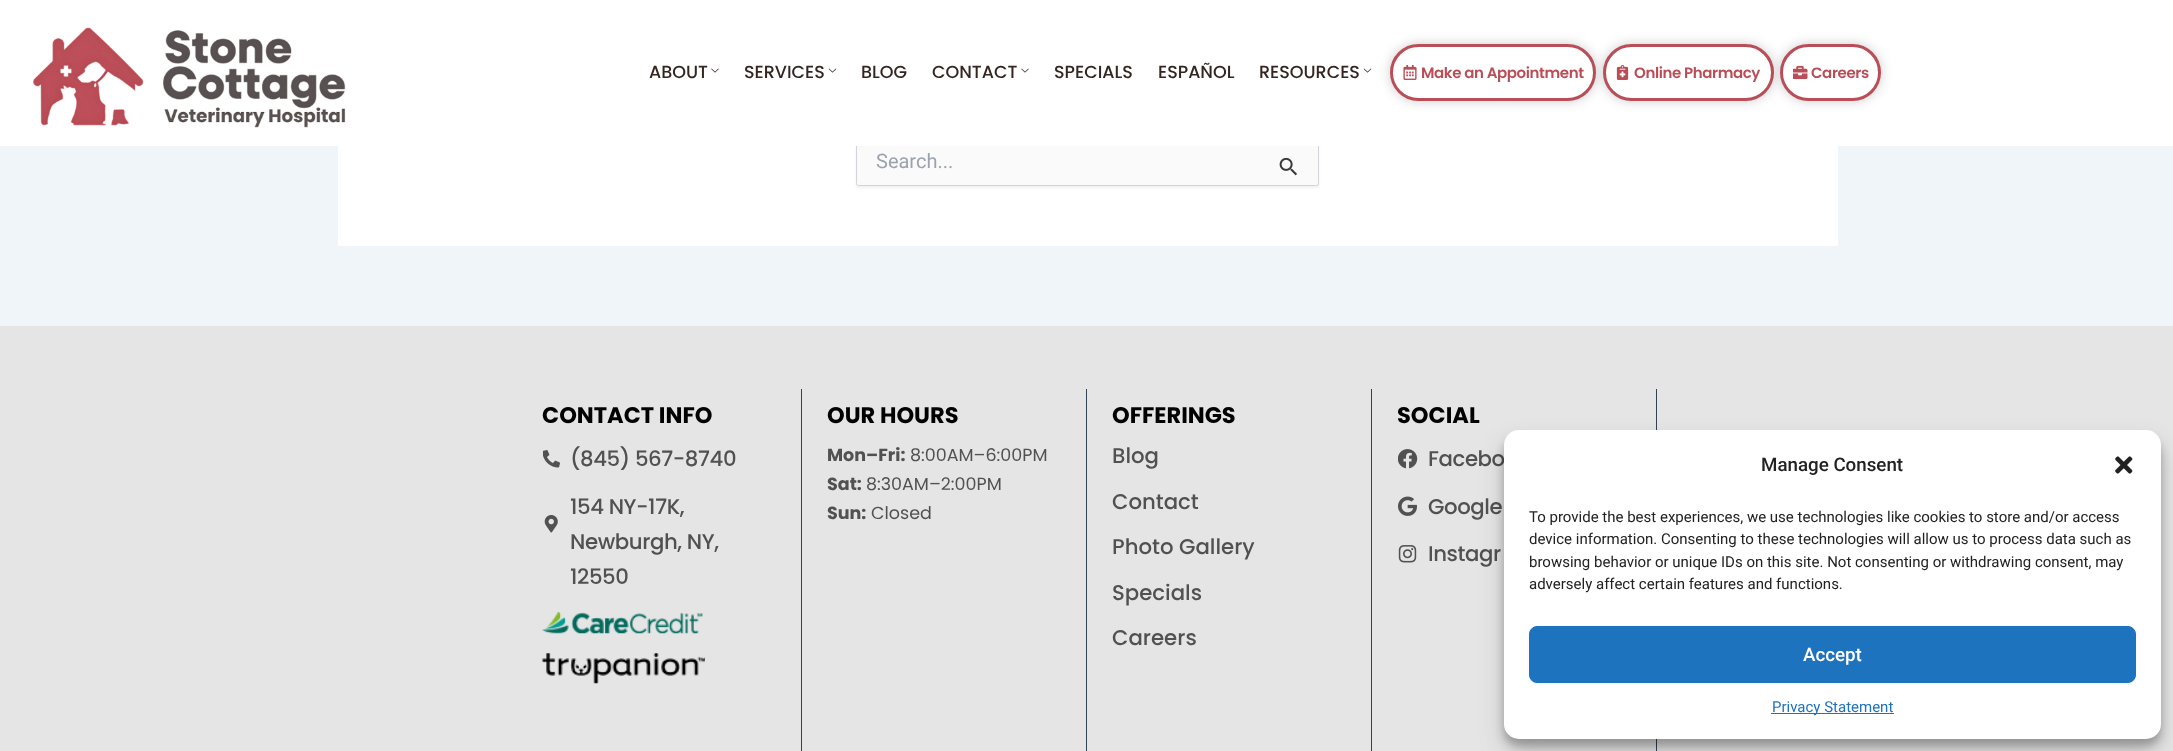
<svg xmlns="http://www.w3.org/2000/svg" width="2173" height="751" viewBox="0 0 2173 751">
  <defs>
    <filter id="blur1" x="-50%" y="-200%" width="200%" height="500%"><feGaussianBlur stdDeviation="1"/></filter>
    <filter id="blur2" x="-50%" y="-200%" width="200%" height="500%"><feGaussianBlur stdDeviation="6"/></filter>
    <filter id="blur3" x="-50%" y="-200%" width="200%" height="500%"><feGaussianBlur stdDeviation="4"/></filter>
    <filter id="blur4" x="-50%" y="-200%" width="200%" height="500%"><feGaussianBlur stdDeviation="12.5"/></filter>
  </defs>
  <rect width="100%" height="100%" fill="#f0f5fa"/>
  <rect x="338" y="146" width="1500" height="100" fill="#ffffff"/>
  <rect x="856" y="138" width="463" height="50" rx="2.5" fill="#000000" fill-opacity="0.05" filter="url(#blur1)"/>
  <rect x="856.5" y="136.5" width="462" height="49" rx="2" fill="#fafafa" stroke="#d1d5db"/>
  <rect x="0" y="0" width="2173" height="146" fill="#ffffff"/>
  <image x="33" y="27" width="313" height="101" href="img1.png"/>
  <text x="649" y="78" font-family="Poppins" font-size="17.5" font-weight="500" fill="#342520">ABOUT</text>
  <image x="711" y="68" width="8" height="5" href="img2.png"/>
  <text x="744" y="78" font-family="Poppins" font-size="17.5" font-weight="500" fill="#342520">SERVICES</text>
  <image x="828" y="68" width="9" height="5" href="img3.png"/>
  <text x="861" y="78" font-family="Poppins" font-size="17.5" font-weight="500" fill="#342520">BLOG</text>
  <text x="932" y="78" font-family="Poppins" font-size="17.5" font-weight="500" fill="#342520">CONTACT</text>
  <image x="1021" y="68" width="8" height="5" href="img2.png"/>
  <text x="1054" y="78" font-family="Poppins" font-size="17.5" font-weight="500" fill="#342520">SPECIALS</text>
  <text x="1158" y="78" font-family="Poppins" font-size="17.5" font-weight="500" fill="#342520">ESPAÑOL</text>
  <text x="1259" y="78" font-family="Poppins" font-size="17.5" font-weight="500" fill="#342520">RESOURCES</text>
  <rect x="1390" y="44" width="206" height="57" rx="28.5" fill="#000000" fill-opacity="0.2" filter="url(#blur2)"/>
  <image x="1363" y="68" width="9" height="5" href="img3.png"/>
  <rect x="1391.5" y="45.5" width="203" height="54" rx="27" fill="#ffffff" stroke="#b94e58" stroke-width="3"/>
  <image x="1403" y="65" width="14" height="15" href="img4.png"/>
  <text x="1421" y="78" font-family="Poppins" font-size="15" font-weight="600" letter-spacing="-0.4" fill="#b94e58">Make an Appointment</text>
  <rect x="1603" y="44" width="171" height="57" rx="28.5" fill="#000000" fill-opacity="0.2" filter="url(#blur2)"/>
  <rect x="1604.5" y="45.5" width="168" height="54" rx="27" fill="#ffffff" stroke="#b94e58" stroke-width="3"/>
  <image x="1616" y="65" width="13" height="15" href="img5.png"/>
  <text x="1634" y="78" font-family="Poppins" font-size="15" font-weight="600" letter-spacing="-0.4" fill="#b94e58">Online Pharmacy</text>
  <rect x="1780" y="44" width="101" height="57" rx="28.5" fill="#000000" fill-opacity="0.2" filter="url(#blur2)"/>
  <rect x="1781.5" y="45.5" width="98" height="54" rx="27" fill="#ffffff" stroke="#b94e58" stroke-width="3"/>
  <image x="1793" y="65" width="15" height="15" href="img6.png"/>
  <text x="1811" y="78" font-family="Poppins" font-size="15" font-weight="600" letter-spacing="-0.4" fill="#b94e58">Careers</text>
  <text x="876" y="168" font-family="Roboto" font-size="20" fill="#9ca3af">Search...</text>
  <image x="1279" y="157" width="18" height="19" href="img7.png"/>
  <rect x="0" y="326" width="2173" height="425" fill="#e5e5e5"/>
  <rect x="801" y="389" width="1" height="362" fill="#334155"/>
  <text x="542" y="423" font-family="Poppins" font-size="22.5" font-weight="bold" fill="#000000">CONTACT INFO</text>
  <image x="543" y="450" width="17" height="18" href="img8.png"/>
  <text x="570" y="466" font-family="Poppins" font-size="21.25" font-weight="500" letter-spacing="-0.4" fill="#515151">(845) 567-8740</text>
  <image x="544" y="515" width="14" height="18" href="img9.png"/>
  <text x="570" y="514" font-family="Poppins" font-size="21.25" font-weight="500" letter-spacing="-0.4" fill="#515151">154 NY-17K,</text>
  <text x="570" y="549" font-family="Poppins" font-size="21.25" font-weight="500" letter-spacing="-0.4" fill="#515151">Newburgh, NY,</text>
  <text x="570" y="584" font-family="Poppins" font-size="21.25" font-weight="500" letter-spacing="-0.4" fill="#515151">12550</text>
  <image x="542" y="612" width="161" height="22" href="img10.png"/>
  <image x="542" y="653" width="163" height="31" href="img11.png"/>
  <rect x="1086" y="389" width="1" height="362" fill="#334155"/>
  <text x="827" y="423" font-family="Poppins" font-size="22.5" font-weight="bold" fill="#000000">OUR HOURS</text>
  <text x="827" y="461" font-family="Poppins" font-size="17.5" font-weight="bold" fill="#515151">Mon–Fri:</text>
  <text x="910" y="461" font-family="Poppins" font-size="17.5" fill="#515151">8:00AM–6:00PM</text>
  <text x="827" y="490" font-family="Poppins" font-size="17.5" font-weight="bold" fill="#515151">Sat:</text>
  <text x="866" y="490" font-family="Poppins" font-size="17.5" fill="#515151">8:30AM–2:00PM</text>
  <text x="827" y="519" font-family="Poppins" font-size="17.5" font-weight="bold" fill="#515151">Sun:</text>
  <text x="871" y="519" font-family="Poppins" font-size="17.5" fill="#515151">Closed</text>
  <rect x="1371" y="389" width="1" height="362" fill="#334155"/>
  <text x="1112" y="423" font-family="Poppins" font-size="22.5" font-weight="bold" fill="#000000">OFFERINGS</text>
  <text x="1112" y="463" font-family="Poppins" font-size="21.25" font-weight="500" fill="#515151">Blog</text>
  <text x="1112" y="509" font-family="Poppins" font-size="21.25" font-weight="500" fill="#515151">Contact</text>
  <text x="1112" y="554" font-family="Poppins" font-size="21.25" font-weight="500" fill="#515151">Photo Gallery</text>
  <text x="1112" y="600" font-family="Poppins" font-size="21.25" font-weight="500" fill="#515151">Specials</text>
  <text x="1112" y="645" font-family="Poppins" font-size="21.25" font-weight="500" fill="#515151">Careers</text>
  <rect x="1656" y="389" width="1" height="362" fill="#334155"/>
  <text x="1397" y="423" font-family="Poppins" font-size="22.5" font-weight="bold" fill="#000000">SOCIAL</text>
  <image x="1398" y="449" width="20" height="20" href="img12.png"/>
  <text x="1428" y="466" font-family="Poppins" font-size="21.25" font-weight="500" letter-spacing="-0.4" fill="#515151">Facebo</text>
  <image x="1398" y="496" width="19" height="20" href="img13.png"/>
  <text x="1428" y="514" font-family="Poppins" font-size="21.25" font-weight="500" letter-spacing="-0.4" fill="#515151">Google</text>
  <image x="1398" y="545" width="19" height="18" href="img14.png"/>
  <text x="1428" y="561" font-family="Poppins" font-size="21.25" font-weight="500" letter-spacing="-0.4" fill="#515151">Instagr</text>
  <rect x="1504" y="438" width="657" height="308" rx="15" fill="#000000" fill-opacity="0.23" filter="url(#blur3)"/>
  <rect x="1504" y="443" width="657" height="308" rx="15" fill="#000000" fill-opacity="0.19" filter="url(#blur4)"/>
  <rect x="1504" y="430" width="657" height="309" rx="15" fill="#ffffff"/>
  <text x="1761" y="471" font-family="Roboto" font-size="18.75" font-weight="500" fill="#222222">Manage Consent</text>
  <image x="2115" y="456" width="18" height="18" href="img15.png"/>
  <text x="1529" y="522" font-family="Roboto" font-size="15" fill="#222222">To provide the best experiences, we use technologies like cookies to store and/or access</text>
  <text x="1529" y="544" font-family="Roboto" font-size="15" fill="#222222">device information. Consenting to these technologies will allow us to process data such as</text>
  <text x="1529" y="567" font-family="Roboto" font-size="15" fill="#222222">browsing behavior or unique IDs on this site. Not consenting or withdrawing consent, may</text>
  <text x="1529" y="589" font-family="Roboto" font-size="15" fill="#222222">adversely affect certain features and functions.</text>
  <rect x="1529" y="628" width="607" height="56" rx="8" fill="#000000" fill-opacity="0.05" filter="url(#blur1)"/>
  <rect x="1529.5" y="626.5" width="606" height="56" rx="7.5" fill="#1e73be" stroke="#1e73be"/>
  <text x="1803" y="661" font-family="Roboto" font-size="18.75" font-weight="500" fill="#ffffff">Accept</text>
  <rect x="1771" y="713" width="123" height="1" fill="#1e73be"/>
  <text x="1772" y="712" font-family="Roboto" font-size="15" fill="#1e73be">Privacy Statement</text>
</svg>
